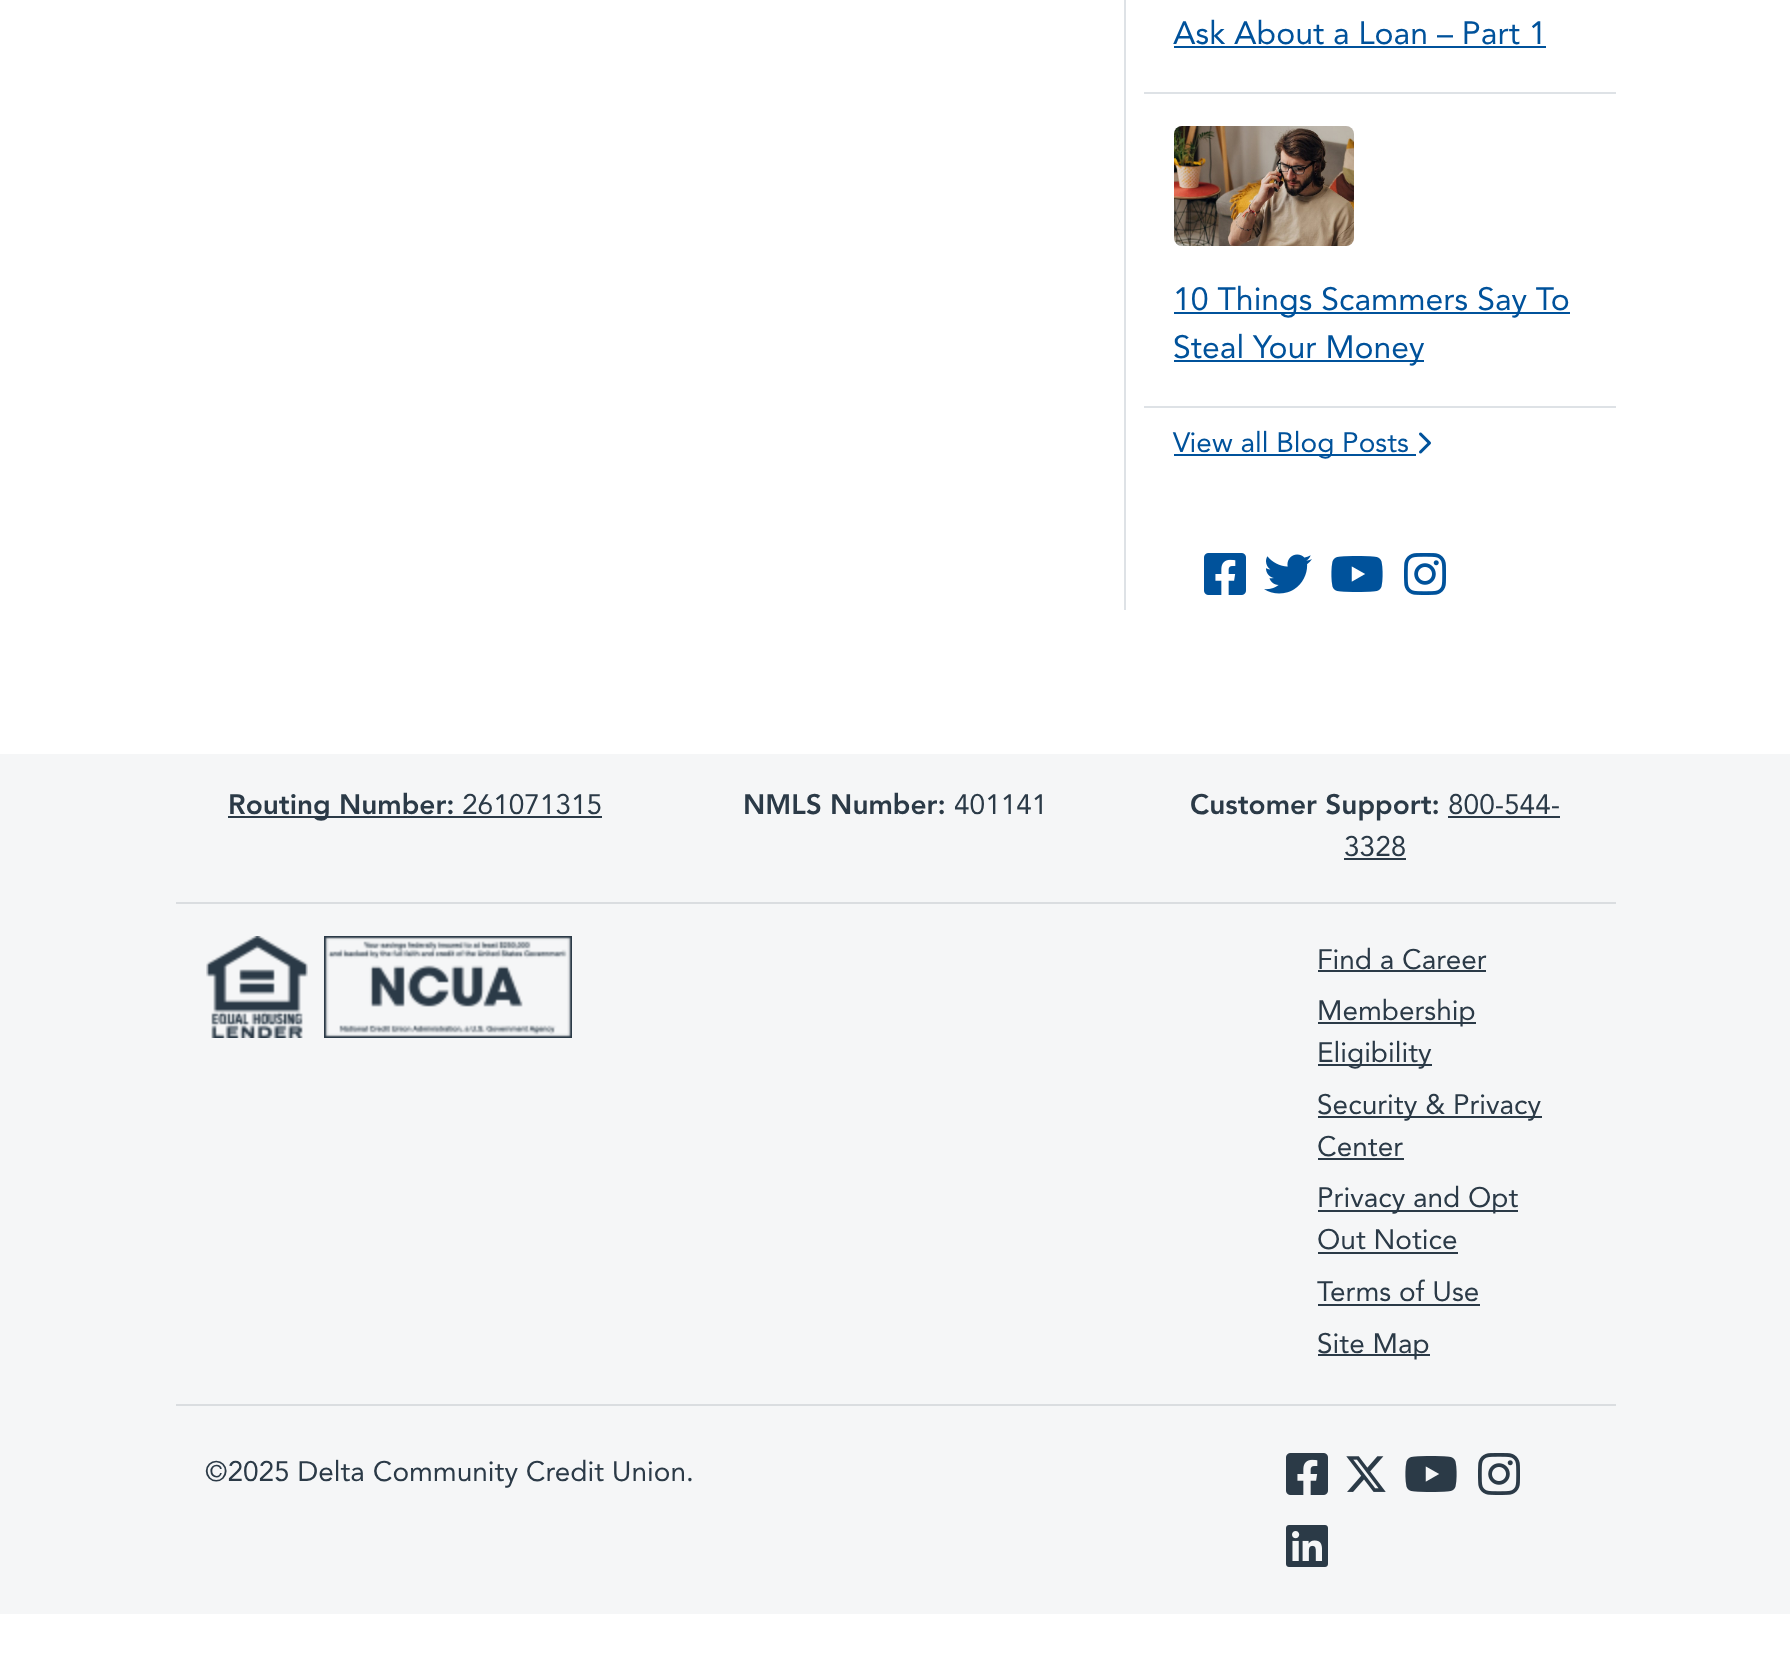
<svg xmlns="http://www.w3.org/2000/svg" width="1790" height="1662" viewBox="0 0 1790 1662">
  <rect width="100%" height="100%" fill="#ffffff"/>
  <rect x="1124" y="0" width="2" height="610" fill="#dee2e6"/>
  <rect x="1144" y="92" width="472" height="2" fill="#dee2e6"/>
  <text x="1173" y="44" font-family="Avenir" font-size="32" fill="#00529b">Ask About a Loan – Part 1</text>
  <rect x="1174" y="46" width="372" height="2" fill="#00529b"/>
  <rect x="1144" y="406" width="472" height="2" fill="#dee2e6"/>
  <image x="1174" y="126" width="180" height="120" href="img1.png"/>
  <rect x="1174" y="312" width="396" height="2" fill="#00529b"/>
  <text x="1173" y="310" font-family="Avenir" font-size="32" fill="#00529b">10 Things Scammers Say To</text>
  <rect x="1174" y="360" width="250" height="2" fill="#00529b"/>
  <text x="1173" y="358" font-family="Avenir" font-size="32" fill="#00529b">Steal Your Money</text>
  <rect x="1174" y="454" width="242" height="2" fill="#00529b"/>
  <text x="1173" y="452" font-family="Avenir" font-size="28" fill="#00529b">View all Blog Posts</text>
  <image x="1419" y="432" width="12" height="22" href="img2.png"/>
  <image x="1204" y="553" width="42" height="42" href="img3.png"/>
  <image x="1264" y="554" width="48" height="40" href="img4.png"/>
  <image x="1331" y="556" width="52" height="36" href="img5.png"/>
  <image x="1404" y="553" width="42" height="42" href="img6.png"/>
  <rect x="0" y="754" width="1790" height="860" fill="#f5f6f7"/>
  <rect x="176" y="902" width="1440" height="2" fill="#dadde0"/>
  <rect x="228" y="816" width="374" height="2" fill="#2b3a47"/>
  <text x="228" y="814" font-family="'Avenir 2'" font-size="28" fill="#2b3a47">Routing Number:</text>
  <text x="462" y="814" font-family="Avenir" font-size="28" fill="#2b3a47">261071315</text>
  <text x="743" y="814" font-family="'Avenir 2'" font-size="28" fill="#2b3a47">NMLS Number:</text>
  <text x="954" y="814" font-family="Avenir" font-size="28" fill="#2b3a47">401141</text>
  <text x="1190" y="814" font-family="'Avenir 2'" font-size="28" fill="#2b3a47">Customer Support:</text>
  <text x="1448" y="814" font-family="Avenir" font-size="28" fill="#2b3a47">800-544-</text>
  <rect x="1448" y="816" width="112" height="2" fill="#2b3a47"/>
  <text x="1344" y="856" font-family="Avenir" font-size="28" fill="#2b3a47">3328</text>
  <rect x="1344" y="858" width="62" height="2" fill="#2b3a47"/>
  <rect x="176" y="1404" width="1440" height="2" fill="#dadde0"/>
  <image x="206" y="936" width="102" height="102" href="img7.png"/>
  <image x="324" y="936" width="248" height="102" href="img8.png"/>
  <text x="1317" y="969" font-family="Avenir" font-size="28" fill="#2b3a47">Find a Career</text>
  <rect x="1318" y="970" width="168" height="2" fill="#2b3a47"/>
  <rect x="1318" y="1022" width="158" height="2" fill="#2b3a47"/>
  <text x="1317" y="1020" font-family="Avenir" font-size="28" fill="#2b3a47">Membership</text>
  <rect x="1318" y="1064" width="114" height="2" fill="#2b3a47"/>
  <text x="1317" y="1062" font-family="Avenir" font-size="28" fill="#2b3a47">Eligibility</text>
  <rect x="1318" y="1116" width="224" height="2" fill="#2b3a47"/>
  <text x="1317" y="1114" font-family="Avenir" font-size="28" fill="#2b3a47">Security &amp; Privacy</text>
  <text x="1317" y="1156" font-family="Avenir" font-size="28" fill="#2b3a47">Center</text>
  <rect x="1318" y="1158" width="86" height="2" fill="#2b3a47"/>
  <rect x="1318" y="1210" width="200" height="2" fill="#2b3a47"/>
  <text x="1317" y="1207" font-family="Avenir" font-size="28" fill="#2b3a47">Privacy and Opt</text>
  <text x="1317" y="1249" font-family="Avenir" font-size="28" fill="#2b3a47">Out Notice</text>
  <rect x="1318" y="1252" width="140" height="2" fill="#2b3a47"/>
  <text x="1317" y="1301" font-family="Avenir" font-size="28" fill="#2b3a47">Terms of Use</text>
  <rect x="1318" y="1304" width="162" height="2" fill="#2b3a47"/>
  <rect x="1318" y="1354" width="112" height="2" fill="#2b3a47"/>
  <text x="1317" y="1353" font-family="Avenir" font-size="28" fill="#2b3a47">Site Map</text>
  <text x="205" y="1481" font-family="Avenir" font-size="28" fill="#2b3a47">©2025 Delta Community Credit Union.</text>
  <image x="1286" y="1453" width="42" height="42" href="img9.png"/>
  <image x="1346" y="1456" width="40" height="36" href="img10.png"/>
  <image x="1405" y="1456" width="52" height="36" href="img11.png"/>
  <image x="1478" y="1453" width="42" height="42" href="img12.png"/>
  <image x="1286" y="1525" width="42" height="42" href="img13.png"/>
</svg>
